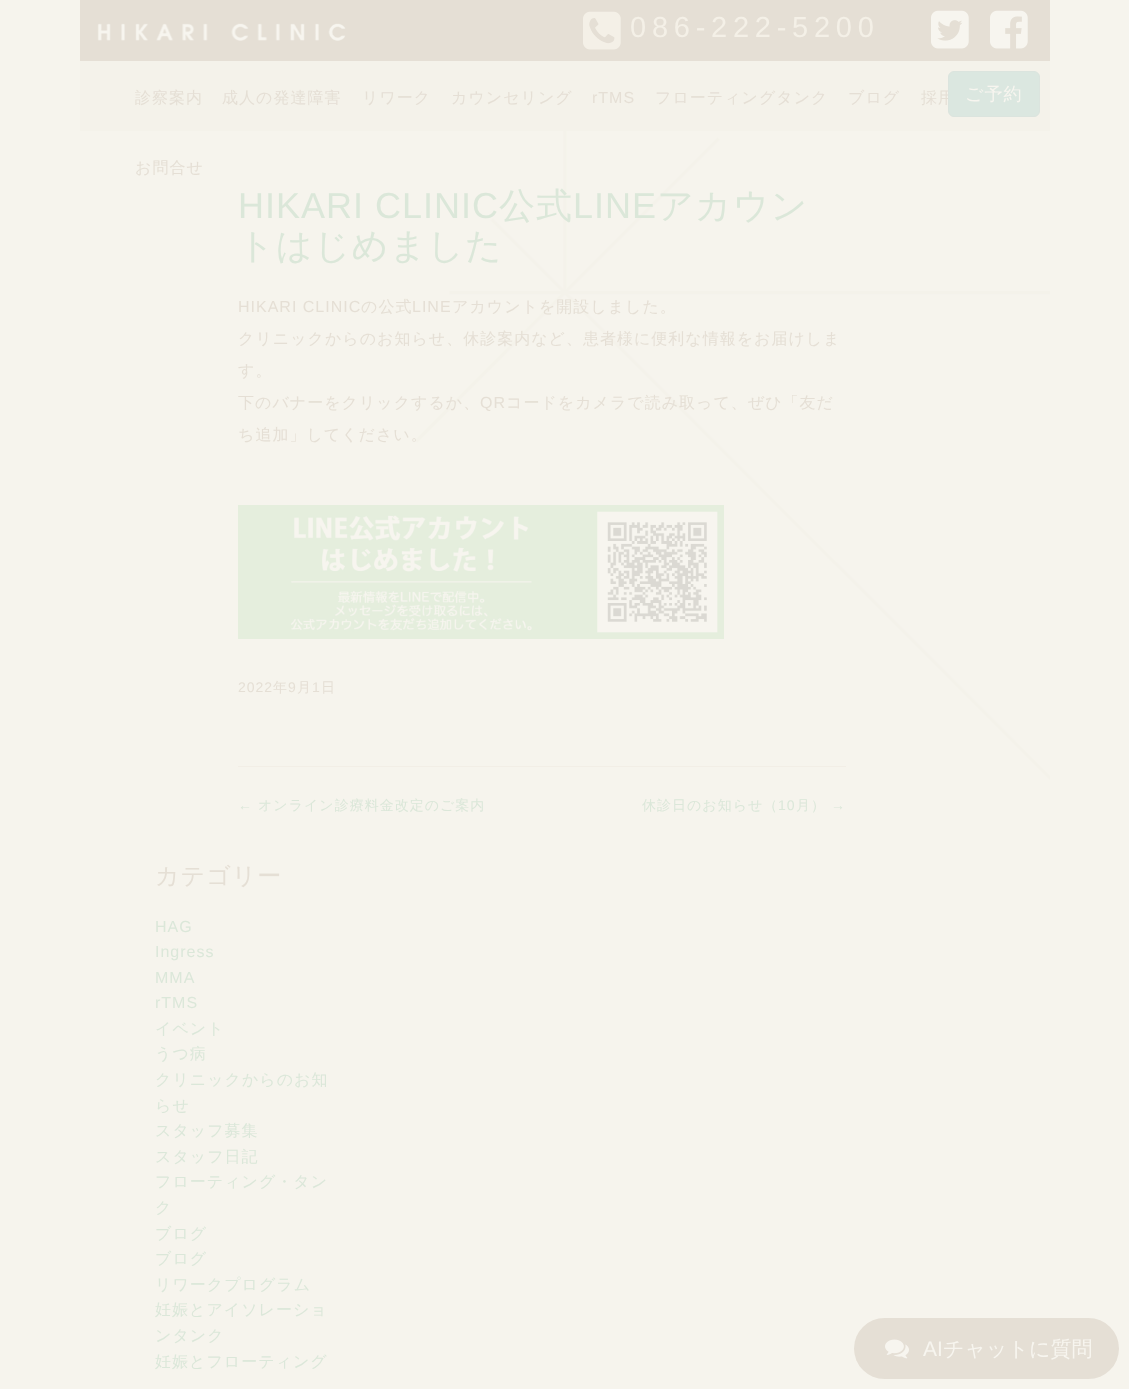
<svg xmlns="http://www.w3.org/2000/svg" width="1129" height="1389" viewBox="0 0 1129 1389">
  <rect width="100%" height="100%" fill="#f6f4ed"/>
  <rect x="80" y="0" width="970" height="61" fill="#e5dfd5"/>
  <image x="97" y="23" width="249" height="18" href="img1.png"/>
  <image x="583" y="11" width="38" height="39" href="img2.png"/>
  <text x="630" y="37" font-family="Liberation Sans" font-size="29" letter-spacing="5.75" fill="#f4f0e7">086-222-5200</text>
  <image x="931" y="10" width="38" height="39" href="img3.png"/>
  <image x="990" y="10" width="38" height="39" href="img4.png"/>
  <rect x="80" y="61" width="970" height="70" fill="#f4f2ea"/>
  <text x="135" y="103" font-family="WenQuanYi Zen Hei" font-size="16" font-weight="500" letter-spacing="1" fill="#e5dfd5">診察案内</text>
  <text x="222" y="103" font-family="WenQuanYi Zen Hei" font-size="16" font-weight="500" letter-spacing="1" fill="#e5dfd5">成人の発達障害</text>
  <text x="362" y="103" font-family="WenQuanYi Zen Hei" font-size="16" font-weight="500" letter-spacing="1" fill="#e5dfd5">リワーク</text>
  <text x="451" y="103" font-family="WenQuanYi Zen Hei" font-size="16" font-weight="500" letter-spacing="1" fill="#e5dfd5">カウンセリング</text>
  <text x="592" y="103" font-family="Liberation Sans" font-size="16" letter-spacing="1" fill="#e5dfd5">rTMS</text>
  <text x="655" y="103" font-family="WenQuanYi Zen Hei" font-size="16" font-weight="500" letter-spacing="1" fill="#e5dfd5">フローティングタンク</text>
  <text x="848" y="103" font-family="WenQuanYi Zen Hei" font-size="16" font-weight="500" letter-spacing="1" fill="#e5dfd5">ブログ</text>
  <text x="921" y="103" font-family="WenQuanYi Zen Hei" font-size="16" font-weight="500" letter-spacing="1" fill="#e5dfd5">採用</text>
  <text x="135" y="173" font-family="WenQuanYi Zen Hei" font-size="16" font-weight="500" letter-spacing="1" fill="#e5dfd5">お問合せ</text>
  <rect x="948.5" y="71.5" width="91" height="45" rx="5.5" fill="#dbe7e0" stroke="#dbe4de"/>
  <text x="965" y="100" font-family="WenQuanYi Zen Hei" font-size="18" font-weight="500" letter-spacing="1" fill="#f7f5ef">ご予約</text>
  <image x="415" y="131" width="635" height="649" href="img5.png"/>
  <text x="238" y="218" font-family="Liberation Sans" font-size="36" letter-spacing="1" fill="#dbe7d9">HIKARI CLINIC</text>
  <text x="499" y="218" font-family="WenQuanYi Zen Hei" font-size="36" font-weight="500" letter-spacing="1" fill="#dbe7d9">公式</text>
  <text x="573" y="218" font-family="Liberation Sans" font-size="36" letter-spacing="1" fill="#dbe7d9">LINE</text>
  <text x="657" y="218" font-family="WenQuanYi Zen Hei" font-size="36" font-weight="500" letter-spacing="1" fill="#dbe7d9">アカウン</text>
  <text x="238" y="258" font-family="WenQuanYi Zen Hei" font-size="36" font-weight="500" letter-spacing="1" fill="#dbe7d9">トはじめました</text>
  <text x="238" y="312" font-family="Liberation Sans" font-size="16" letter-spacing="1" fill="#e5dfd5">HIKARI CLINIC</text>
  <text x="361" y="312" font-family="WenQuanYi Zen Hei" font-size="16" font-weight="500" letter-spacing="1" fill="#e5dfd5">の公式</text>
  <text x="412" y="312" font-family="Liberation Sans" font-size="16" letter-spacing="1" fill="#e5dfd5">LINE</text>
  <text x="452" y="312" font-family="WenQuanYi Zen Hei" font-size="16" font-weight="500" letter-spacing="1" fill="#e5dfd5">アカウントを開設しました。</text>
  <text x="238" y="344" font-family="WenQuanYi Zen Hei" font-size="16" font-weight="500" letter-spacing="1" fill="#e5dfd5">クリニックからのお知らせ、休診案内など、患者様に便利な情報をお届けしま</text>
  <text x="238" y="376" font-family="WenQuanYi Zen Hei" font-size="16" font-weight="500" letter-spacing="1" fill="#e5dfd5">す。</text>
  <text x="238" y="408" font-family="WenQuanYi Zen Hei" font-size="16" font-weight="500" letter-spacing="1" fill="#e5dfd5">下のバナーをクリックするか、</text>
  <text x="480" y="408" font-family="Liberation Sans" font-size="16" letter-spacing="1" fill="#e5dfd5">QR</text>
  <text x="506" y="408" font-family="WenQuanYi Zen Hei" font-size="16" font-weight="500" letter-spacing="1" fill="#e5dfd5">コードをカメラで読み取って、ぜひ「友だ</text>
  <text x="238" y="440" font-family="WenQuanYi Zen Hei" font-size="16" font-weight="500" letter-spacing="1" fill="#e5dfd5">ち追加」してください。</text>
  <image x="238" y="505" width="486" height="134" href="img6.png"/>
  <text x="238" y="692" font-family="Liberation Sans" font-size="14" letter-spacing="1" fill="#e5dfd5">2022</text>
  <text x="273" y="692" font-family="WenQuanYi Zen Hei" font-size="14" font-weight="500" letter-spacing="1" fill="#e5dfd5">年</text>
  <text x="288" y="692" font-family="Liberation Sans" font-size="14" letter-spacing="1" fill="#e5dfd5">9</text>
  <text x="297" y="692" font-family="WenQuanYi Zen Hei" font-size="14" font-weight="500" letter-spacing="1" fill="#e5dfd5">月</text>
  <text x="312" y="692" font-family="Liberation Sans" font-size="14" letter-spacing="1" fill="#e5dfd5">1</text>
  <text x="321" y="692" font-family="WenQuanYi Zen Hei" font-size="14" font-weight="500" letter-spacing="1" fill="#e5dfd5">日</text>
  <rect x="238" y="766" width="608" height="1" fill="#f2eee6"/>
  <text x="238" y="810" font-family="Liberation Sans" font-size="14" letter-spacing="1" fill="#dbe7d9">←</text>
  <text x="258" y="810" font-family="WenQuanYi Zen Hei" font-size="14" font-weight="500" letter-spacing="1" fill="#dbe7d9">オンライン診療料金改定のご案内</text>
  <text x="642" y="810" font-family="WenQuanYi Zen Hei" font-size="14" font-weight="500" letter-spacing="1" fill="#dbe7d9">休診日のお知らせ（</text>
  <text x="778" y="810" font-family="Liberation Sans" font-size="14" letter-spacing="1" fill="#dbe7d9">10</text>
  <text x="796" y="810" font-family="WenQuanYi Zen Hei" font-size="14" font-weight="500" letter-spacing="1" fill="#dbe7d9">月）</text>
  <text x="831" y="810" font-family="Liberation Sans" font-size="14" letter-spacing="1" fill="#dbe7d9">→</text>
  <text x="155" y="884" font-family="WenQuanYi Zen Hei" font-size="24" font-weight="500" letter-spacing="1" fill="#e5dfd5">カテゴリー</text>
  <text x="155" y="932" font-family="Liberation Sans" font-size="16" letter-spacing="1" fill="#dbe7d9">HAG</text>
  <text x="155" y="957" font-family="Liberation Sans" font-size="16" letter-spacing="1" fill="#dbe7d9">Ingress</text>
  <text x="155" y="983" font-family="Liberation Sans" font-size="16" letter-spacing="1" fill="#dbe7d9">MMA</text>
  <text x="155" y="1008" font-family="Liberation Sans" font-size="16" letter-spacing="1" fill="#dbe7d9">rTMS</text>
  <text x="155" y="1034" font-family="WenQuanYi Zen Hei" font-size="16" font-weight="500" letter-spacing="1" fill="#dbe7d9">イベント</text>
  <text x="155" y="1059" font-family="WenQuanYi Zen Hei" font-size="16" font-weight="500" letter-spacing="1" fill="#dbe7d9">うつ病</text>
  <text x="155" y="1085" font-family="WenQuanYi Zen Hei" font-size="16" font-weight="500" letter-spacing="1" fill="#dbe7d9">クリニックからのお知</text>
  <text x="155" y="1111" font-family="WenQuanYi Zen Hei" font-size="16" font-weight="500" letter-spacing="1" fill="#dbe7d9">らせ</text>
  <text x="155" y="1136" font-family="WenQuanYi Zen Hei" font-size="16" font-weight="500" letter-spacing="1" fill="#dbe7d9">スタッフ募集</text>
  <text x="155" y="1162" font-family="WenQuanYi Zen Hei" font-size="16" font-weight="500" letter-spacing="1" fill="#dbe7d9">スタッフ日記</text>
  <text x="155" y="1187" font-family="WenQuanYi Zen Hei" font-size="16" font-weight="500" letter-spacing="1" fill="#dbe7d9">フローティング・タン</text>
  <text x="155" y="1213" font-family="WenQuanYi Zen Hei" font-size="16" font-weight="500" letter-spacing="1" fill="#dbe7d9">ク</text>
  <text x="155" y="1239" font-family="WenQuanYi Zen Hei" font-size="16" font-weight="500" letter-spacing="1" fill="#dbe7d9">ブログ</text>
  <text x="155" y="1264" font-family="WenQuanYi Zen Hei" font-size="16" font-weight="500" letter-spacing="1" fill="#dbe7d9">ブログ</text>
  <text x="155" y="1290" font-family="WenQuanYi Zen Hei" font-size="16" font-weight="500" letter-spacing="1" fill="#dbe7d9">リワークプログラム</text>
  <text x="155" y="1315" font-family="WenQuanYi Zen Hei" font-size="16" font-weight="500" letter-spacing="1" fill="#dbe7d9">妊娠とアイソレーショ</text>
  <text x="155" y="1341" font-family="WenQuanYi Zen Hei" font-size="16" font-weight="500" letter-spacing="1" fill="#dbe7d9">ンタンク</text>
  <text x="155" y="1367" font-family="WenQuanYi Zen Hei" font-size="16" font-weight="500" letter-spacing="1" fill="#dbe7d9">妊娠とフローティング</text>
  <rect x="854" y="1318" width="265" height="61" rx="30.5" fill="#e5dfd5"/>
  <image x="885" y="1339" width="24" height="20" href="img7.png"/>
  <text x="923" y="1356" font-family="Liberation Sans" font-size="21" fill="#f7f5ef">AI</text>
  <text x="943" y="1356" font-family="WenQuanYi Zen Hei" font-size="21" font-weight="500" fill="#f7f5ef">チャットに質問</text>
</svg>
